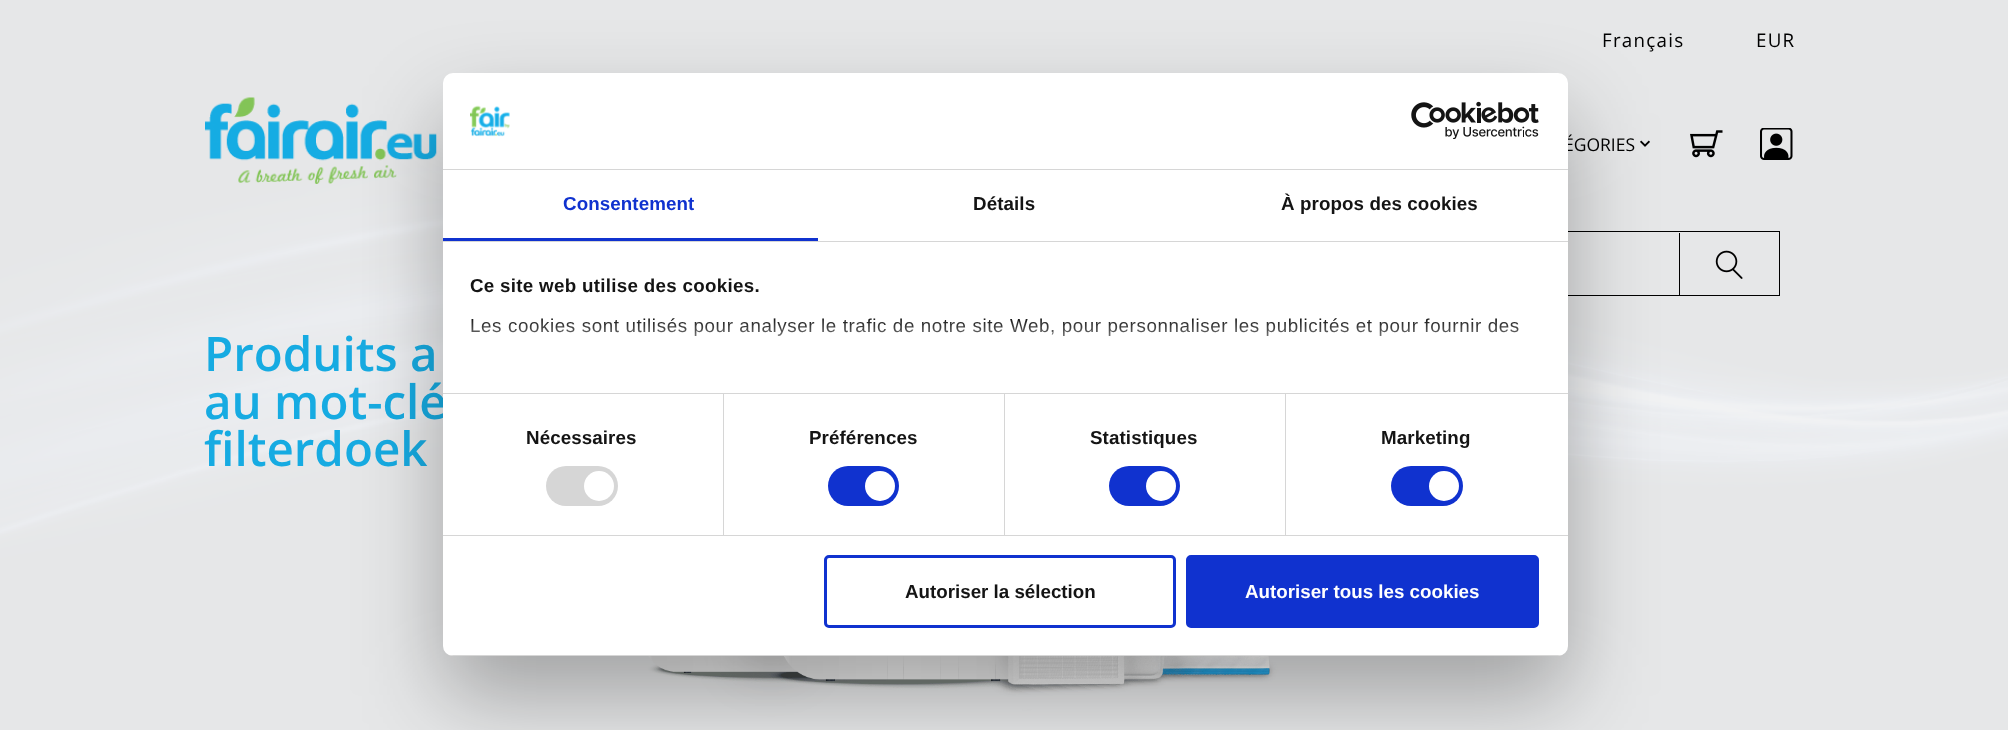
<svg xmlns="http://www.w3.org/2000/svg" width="2008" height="730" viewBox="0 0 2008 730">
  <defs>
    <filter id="blur1" x="-50%" y="-200%" width="200%" height="500%"><feGaussianBlur stdDeviation="42.5"/></filter>
    <linearGradient id="g1" gradientUnits="userSpaceOnUse" x1="992" y1="393" x2="992" y2="318"><stop offset="0" stop-color="#ffffff"/><stop offset="0.5" stop-color="#ffffff" stop-opacity="0.8"/><stop offset="1" stop-color="#ffffff" stop-opacity="0"/></linearGradient>
    <clipPath id="clip1"><rect x="443" y="73" width="1125" height="583" rx="10"/></clipPath>
  </defs>
  <rect width="100%" height="100%" fill="#ffffff"/>
  <image x="0" y="0" width="2008" height="730" href="img6.png"/>
  <text x="1602" y="47" font-family="Open Sans" font-size="18.75" letter-spacing="1.25" fill="#000000">Français</text>
  <text x="1756" y="47" font-family="Open Sans" font-size="18.75" letter-spacing="1.25" fill="#000000">EUR</text>
  <image x="205" y="97" width="232" height="87" href="img1.png"/>
  <text x="1564" y="151" font-family="Open Sans" font-size="17.5" fill="#000000">ÉGORIES</text>
  <image x="1640" y="140" width="10" height="7" href="img2.png"/>
  <image x="1690" y="130" width="33" height="28" href="img3.png"/>
  <image x="1760" y="128" width="33" height="32" href="img4.png"/>
  <rect x="1268.5" y="231.5" width="511" height="64" fill="none" stroke="#000000"/>
  <rect x="1679" y="233" width="1" height="62" fill="#000000"/>
  <image x="1715" y="250" width="28" height="29" href="img5.png"/>
  <text x="204" y="371" font-family="Open Sans" font-size="47.5" font-weight="600" fill="#16abe2">Produits a</text>
  <text x="204" y="419" font-family="Open Sans" font-size="47.5" font-weight="600" fill="#16abe2">au mot-clé</text>
  <text x="204" y="466" font-family="Open Sans" font-size="47.5" font-weight="600" fill="#16abe2">filterdoek</text>
  <rect x="443" y="113" width="1125" height="583" rx="10" fill="#000000" fill-opacity="0.3" filter="url(#blur1)"/>
  <rect x="443" y="73" width="1125" height="583" rx="10" fill="#ffffff"/>
  <rect x="443" y="169" width="1125" height="1" fill="#d6d6d6"/>
  <image x="470" y="105" width="40" height="32" href="img7.png"/>
  <image x="1411" y="101" width="128" height="38" href="img8.png"/>
  <rect x="443" y="241" width="1125" height="1" fill="#d6d6d6"/>
  <rect x="443" y="238" width="375" height="3" fill="#1032cf"/>
  <text x="563" y="210" font-family="Liberation Sans" font-size="18.75" font-weight="bold" letter-spacing="0.1" fill="#1032cf">Consentement</text>
  <text x="973" y="210" font-family="Liberation Sans" font-size="18.75" font-weight="bold" letter-spacing="0.1" fill="#141414">Détails</text>
  <text x="1281" y="210" font-family="Liberation Sans" font-size="18.75" font-weight="bold" letter-spacing="0.1" fill="#141414">À propos des cookies</text>
  <rect x="443" y="393" width="1125" height="1" fill="#d6d6d6"/>
  <text x="470" y="292" font-family="Liberation Sans" font-size="18.75" font-weight="bold" letter-spacing="0.3" fill="#141414">Ce site web utilise des cookies.</text>
  <text x="470" y="332" font-family="Liberation Sans" font-size="18.75" letter-spacing="0.62" fill="#141414">Les cookies sont utilisés pour analyser le trafic de notre site Web, pour personnaliser les publicités et pour fournir des</text>
  <rect x="471" y="319" width="1048" height="17" fill="url(#g1)"/>
  <rect x="443" y="535" width="1125" height="1" fill="#d6d6d6"/>
  <rect x="723" y="394" width="1" height="141" fill="#d6d6d6"/>
  <text x="526" y="444" font-family="Liberation Sans" font-size="18.75" font-weight="bold" letter-spacing="0.1" fill="#141414">Nécessaires</text>
  <rect x="546" y="466" width="72" height="40" rx="20" fill="#d6d6d6"/>
  <circle cx="599" cy="486" r="15" fill="#ffffff"/>
  <rect x="1004" y="394" width="1" height="141" fill="#d6d6d6"/>
  <text x="809" y="444" font-family="Liberation Sans" font-size="18.75" font-weight="bold" letter-spacing="0.1" fill="#141414">Préférences</text>
  <rect x="828" y="466" width="71" height="40" rx="20" fill="#1032cf"/>
  <circle cx="880" cy="486" r="15" fill="#ffffff"/>
  <rect x="1285" y="394" width="1" height="141" fill="#d6d6d6"/>
  <text x="1090" y="444" font-family="Liberation Sans" font-size="18.75" font-weight="bold" letter-spacing="0.1" fill="#141414">Statistiques</text>
  <rect x="1109" y="466" width="71" height="40" rx="20" fill="#1032cf"/>
  <circle cx="1161" cy="486" r="15" fill="#ffffff"/>
  <text x="1381" y="444" font-family="Liberation Sans" font-size="18.75" font-weight="bold" letter-spacing="0.1" fill="#141414">Marketing</text>
  <rect x="1391" y="466" width="72" height="40" rx="20" fill="#1032cf"/>
  <circle cx="1444" cy="486" r="15" fill="#ffffff"/>
  <g clip-path="url(#clip1)">
    <rect x="443" y="655" width="1125" height="1" fill="#d6d6d6"/>
  </g>
  <rect x="825.5" y="556.5" width="349" height="70" rx="3.5" fill="none" stroke="#1032cf" stroke-width="3"/>
  <text x="905" y="598" font-family="Liberation Sans" font-size="18.75" font-weight="bold" fill="#141414">Autoriser la sélection</text>
  <rect x="1187.5" y="556.5" width="350" height="70" rx="3.5" fill="#1032cf" stroke="#1032cf" stroke-width="3"/>
  <text x="1245" y="598" font-family="Liberation Sans" font-size="18.75" font-weight="bold" fill="#ffffff">Autoriser tous les cookies</text>
</svg>
